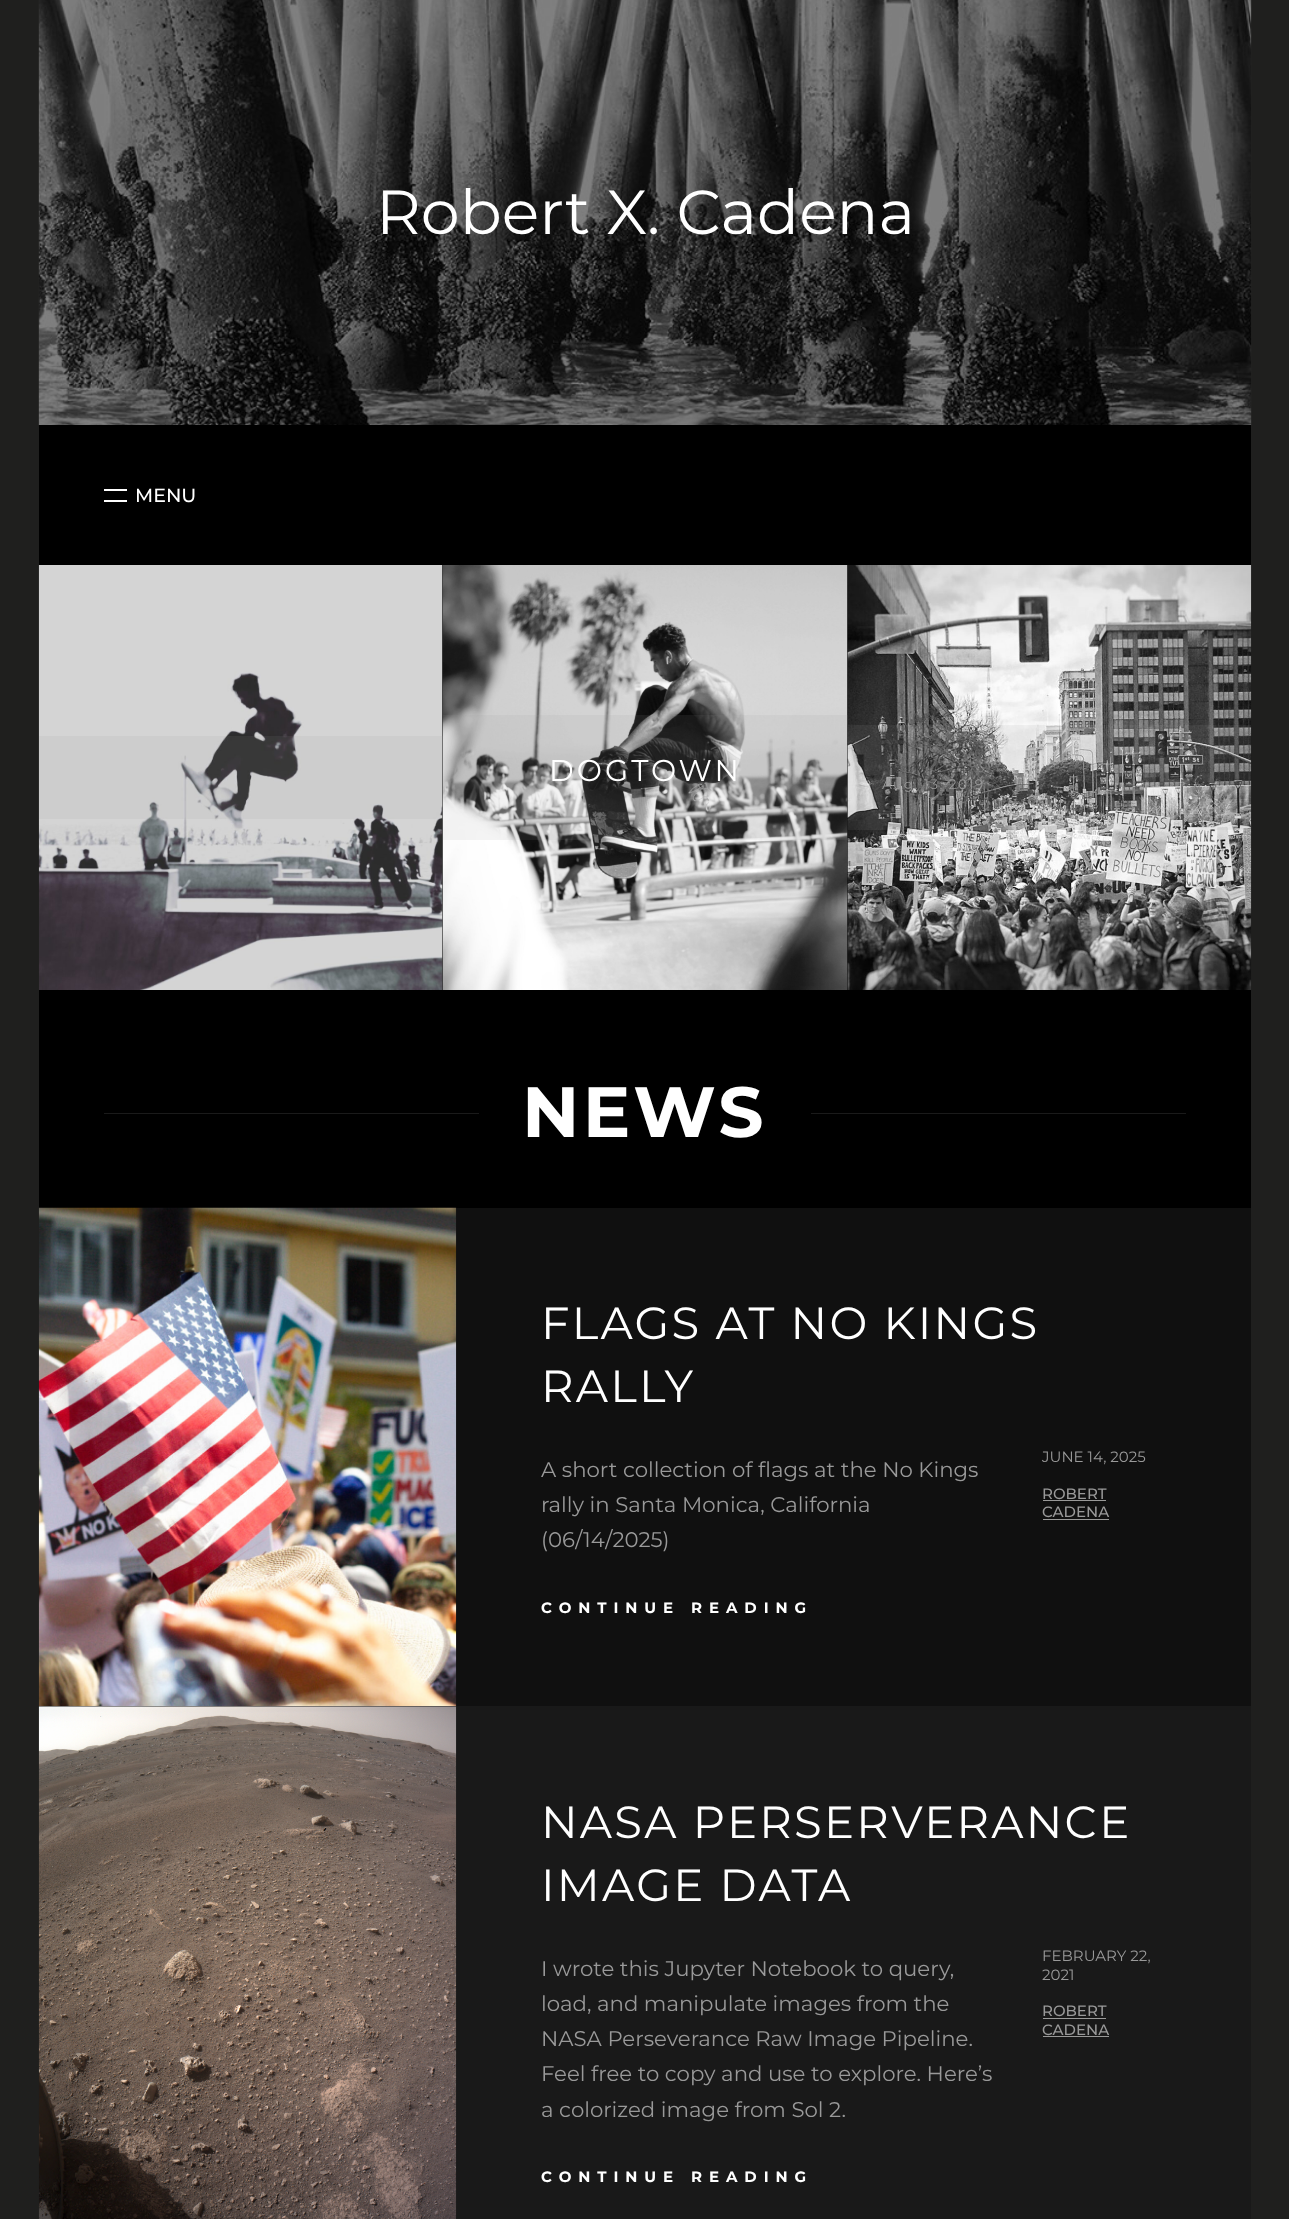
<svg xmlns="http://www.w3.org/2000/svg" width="1289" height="2219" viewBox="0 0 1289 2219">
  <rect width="100%" height="100%" fill="#1f1f1e"/>
  <rect x="39" y="425" width="1212" height="1282" fill="#000000"/>
  <image x="38" y="0" width="1214" height="425" href="img1.png"/>
  <text x="376" y="234" font-family="Montserrat" font-size="62" fill="#ffffff">Robert X. Cadena</text>
  <rect x="104" y="489" width="23" height="2" fill="#ffffff"/>
  <rect x="104" y="500" width="23" height="2" fill="#ffffff"/>
  <text x="135" y="502" font-family="Montserrat" font-size="19" font-weight="500" fill="#ffffff">MENU</text>
  <rect x="442" y="565" width="406" height="425" fill="#111111"/>
  <image x="38" y="565" width="405" height="425" href="img2.png"/>
  <rect x="39" y="736" width="404" height="83" fill="#999997" fill-opacity="0.11"/>
  <image x="442" y="565" width="406" height="425" href="img3.png"/>
  <rect x="443" y="715" width="405" height="125" fill="#999997" fill-opacity="0.11"/>
  <text x="549" y="781" font-family="Montserrat" font-size="30" letter-spacing="3" fill="#ffffff">DOGTOWN</text>
  <image x="847" y="565" width="405" height="425" href="img4.png"/>
  <rect x="848" y="725" width="403" height="105" fill="#999997" fill-opacity="0.11"/>
  <text x="882" y="789" font-family="Montserrat" font-size="13.75" letter-spacing="1.4" fill="#999999">Aug. 13, 2019</text>
  <rect x="104" y="1113" width="375" height="1" fill="#1a1a1a"/>
  <text x="522" y="1137" font-family="Montserrat" font-size="71" font-weight="bold" letter-spacing="3.5" fill="#ffffff">NEWS</text>
  <rect x="811" y="1113" width="375" height="1" fill="#1a1a1a"/>
  <rect x="456" y="1208" width="795" height="498" fill="#101010"/>
  <rect x="456" y="1706" width="795" height="513" fill="#191919"/>
  <image x="38" y="1207" width="419" height="500" href="img5.png"/>
  <text x="541" y="1339" font-family="Montserrat" font-size="45" letter-spacing="2.25" fill="#ffffff">FLAGS AT NO KINGS</text>
  <text x="541" y="1402" font-family="Montserrat" font-size="45" letter-spacing="2.25" fill="#ffffff">RALLY</text>
  <text x="541" y="1477" font-family="Montserrat" font-size="21.25" fill="#999999">A short collection of flags at the No Kings</text>
  <text x="541" y="1512" font-family="Montserrat" font-size="21.25" fill="#999999">rally in Santa Monica, California</text>
  <text x="541" y="1547" font-family="Montserrat" font-size="21.25" fill="#999999">(06/14/2025)</text>
  <text x="541" y="1613" font-family="Montserrat" font-size="15" font-weight="bold" letter-spacing="6.9" fill="#ffffff">CONTINUE READING</text>
  <text x="1042" y="1462" font-family="Montserrat" font-size="15" fill="#999999">JUNE 14, 2025</text>
  <text x="1042" y="1499" font-family="Montserrat" font-size="15" font-weight="500" fill="#999999">ROBERT</text>
  <rect x="1043" y="1500" width="63" height="1" fill="#999998"/>
  <text x="1042" y="1517" font-family="Montserrat" font-size="15" font-weight="500" fill="#999999">CADENA</text>
  <rect x="1043" y="1519" width="66" height="1" fill="#999998"/>
  <image x="38" y="1706" width="419" height="513" href="img6.png"/>
  <text x="541" y="1838" font-family="Montserrat" font-size="45" letter-spacing="2.25" fill="#ffffff">NASA PERSERVERANCE</text>
  <text x="541" y="1901" font-family="Montserrat" font-size="45" letter-spacing="2.25" fill="#ffffff">IMAGE DATA</text>
  <text x="541" y="1976" font-family="Montserrat" font-size="21.25" fill="#999999">I wrote this Jupyter Notebook to query,</text>
  <text x="541" y="2011" font-family="Montserrat" font-size="21.25" fill="#999999">load, and manipulate images from the</text>
  <text x="541" y="2046" font-family="Montserrat" font-size="21.25" fill="#999999">NASA Perseverance Raw Image Pipeline.</text>
  <text x="541" y="2081" font-family="Montserrat" font-size="21.25" fill="#999999">Feel free to copy and use to explore. Here’s</text>
  <text x="541" y="2117" font-family="Montserrat" font-size="21.25" fill="#999999">a colorized image from Sol 2.</text>
  <text x="541" y="2182" font-family="Montserrat" font-size="15" font-weight="bold" letter-spacing="6.9" fill="#ffffff">CONTINUE READING</text>
  <text x="1042" y="1961" font-family="Montserrat" font-size="15" fill="#999999">FEBRUARY 22,</text>
  <text x="1042" y="1980" font-family="Montserrat" font-size="15" fill="#999999">2021</text>
  <text x="1042" y="2016" font-family="Montserrat" font-size="15" font-weight="500" fill="#999999">ROBERT</text>
  <rect x="1043" y="2018" width="63" height="1" fill="#999998"/>
  <text x="1042" y="2035" font-family="Montserrat" font-size="15" font-weight="500" fill="#999999">CADENA</text>
  <rect x="1043" y="2036" width="66" height="1" fill="#999998"/>
</svg>
